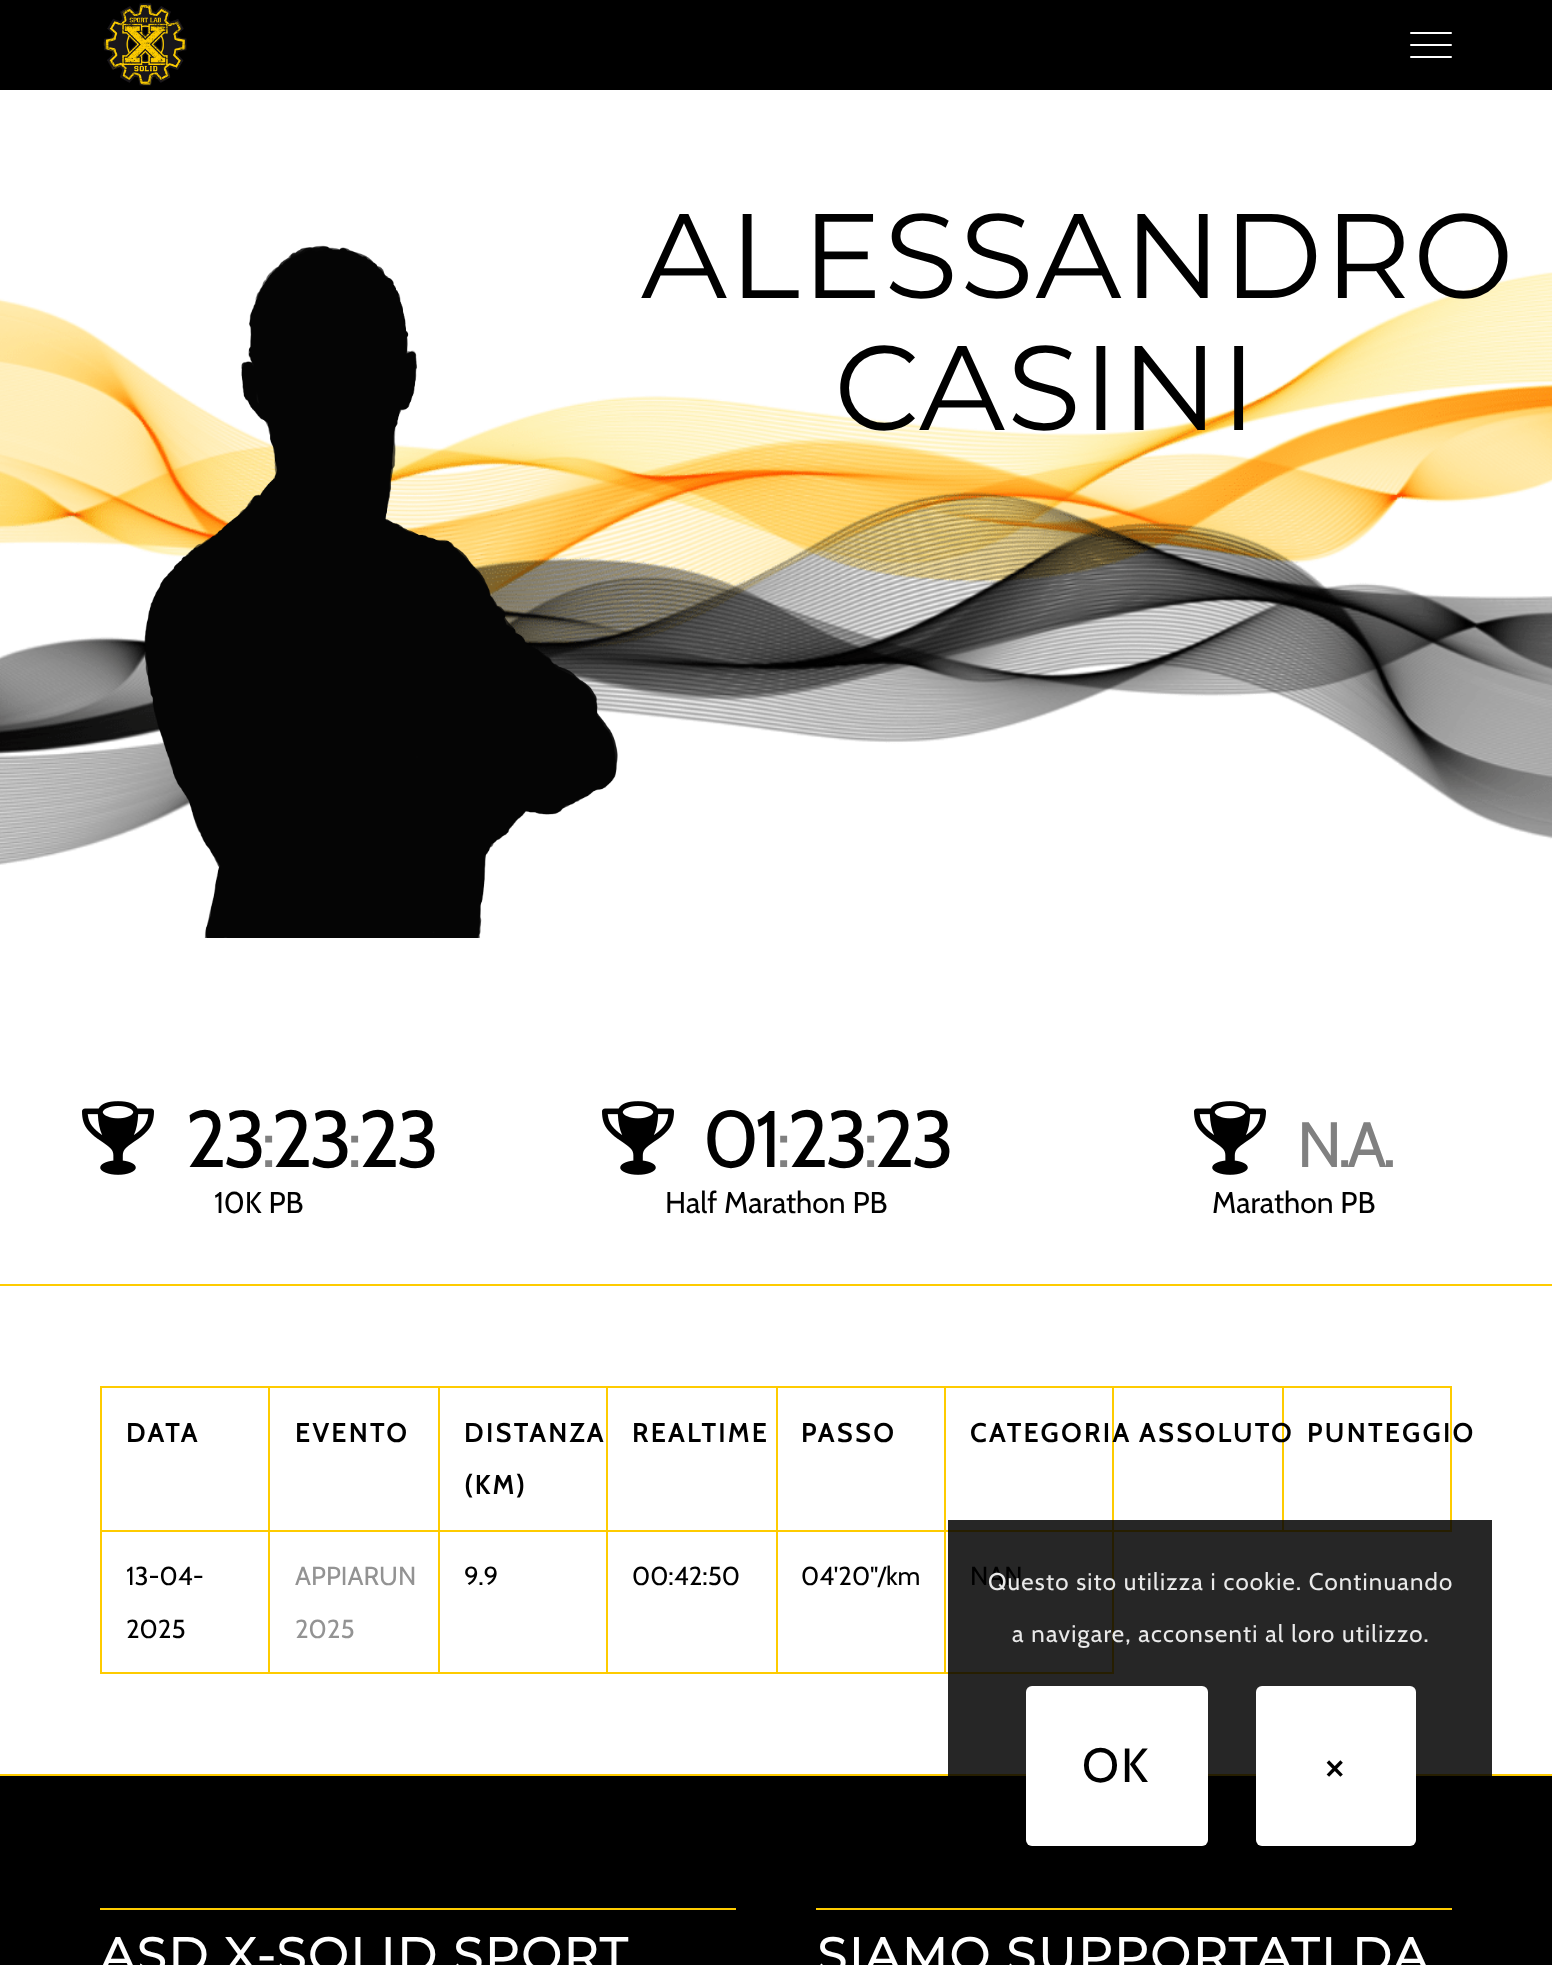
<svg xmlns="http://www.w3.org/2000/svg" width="1552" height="1965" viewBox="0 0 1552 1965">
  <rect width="100%" height="100%" fill="#000000"/>
  <image x="103" y="3" width="84" height="83" href="img1.png"/>
  <rect x="1410" y="44" width="42" height="2" rx="1" fill="#ffffff"/>
  <rect x="1410" y="32" width="42" height="2" rx="1" fill="#ffffff"/>
  <rect x="1410" y="56" width="42" height="2" rx="1" fill="#ffffff"/>
  <rect x="0" y="90" width="1552" height="1194" fill="#ffffff"/>
  <image x="0" y="272" width="1552" height="593" href="img2.png"/>
  <image x="144" y="245" width="474" height="693" href="img3.png"/>
  <text x="641" y="298" font-family="Montserrat" font-size="120" font-weight="100" letter-spacing="2" fill="#000000">ALESSANDRO</text>
  <text x="834" y="430" font-family="Montserrat" font-size="120" font-weight="100" letter-spacing="2" fill="#000000">CASINI</text>
  <image x="82" y="1101" width="72" height="74" href="img4.png"/>
  <text x="185" y="1167" font-family="Cabin" font-size="80" letter-spacing="-4" fill="#000000">23</text>
  <text x="262" y="1167" font-family="Cabin" font-size="64" letter-spacing="-4" fill="#808080">:</text>
  <text x="271" y="1167" font-family="Cabin" font-size="80" letter-spacing="-4" fill="#000000">23</text>
  <text x="348" y="1167" font-family="Cabin" font-size="64" letter-spacing="-4" fill="#808080">:</text>
  <text x="358" y="1167" font-family="Cabin" font-size="80" letter-spacing="-4" fill="#000000">23</text>
  <text x="214" y="1213" font-family="Cabin" font-size="30" fill="#000000">10K PB</text>
  <image x="602" y="1101" width="72" height="74" href="img4.png"/>
  <text x="703" y="1167" font-family="Cabin" font-size="80" letter-spacing="-4" fill="#000000">01</text>
  <text x="777" y="1167" font-family="Cabin" font-size="64" letter-spacing="-4" fill="#808080">:</text>
  <text x="787" y="1167" font-family="Cabin" font-size="80" letter-spacing="-4" fill="#000000">23</text>
  <text x="864" y="1167" font-family="Cabin" font-size="64" letter-spacing="-4" fill="#808080">:</text>
  <text x="873" y="1167" font-family="Cabin" font-size="80" letter-spacing="-4" fill="#000000">23</text>
  <text x="665" y="1213" font-family="Cabin" font-size="30" fill="#000000">Half Marathon PB</text>
  <image x="1194" y="1101" width="72" height="74" href="img4.png"/>
  <text x="1297" y="1167" font-family="Cabin" font-size="64" letter-spacing="-4" fill="#808080">N.A.</text>
  <text x="1212" y="1213" font-family="Cabin" font-size="30" fill="#000000">Marathon PB</text>
  <rect x="0" y="1286" width="1552" height="488" fill="#ffffff"/>
  <rect x="948" y="1520" width="544" height="254" fill="#262626"/>
  <rect x="0" y="1284" width="1552" height="2" fill="#fecb00"/>
  <rect x="944" y="1672" width="4" height="2" fill="#fecb00"/>
  <rect x="944" y="1530" width="2" height="144" fill="#fecb00"/>
  <rect x="944" y="1530" width="4" height="2" fill="#fecb00"/>
  <rect x="100" y="1386" width="1352" height="2" fill="#fecb00"/>
  <rect x="944" y="1386" width="2" height="146" fill="#fecb00"/>
  <rect x="776" y="1672" width="170" height="2" fill="#fecb00"/>
  <rect x="776" y="1530" width="2" height="144" fill="#fecb00"/>
  <rect x="776" y="1530" width="170" height="2" fill="#fecb00"/>
  <rect x="776" y="1386" width="2" height="146" fill="#fecb00"/>
  <rect x="606" y="1672" width="172" height="2" fill="#fecb00"/>
  <rect x="606" y="1530" width="2" height="144" fill="#fecb00"/>
  <rect x="606" y="1530" width="172" height="2" fill="#fecb00"/>
  <rect x="606" y="1386" width="2" height="146" fill="#fecb00"/>
  <rect x="438" y="1672" width="170" height="2" fill="#fecb00"/>
  <rect x="438" y="1530" width="2" height="144" fill="#fecb00"/>
  <rect x="438" y="1530" width="170" height="2" fill="#fecb00"/>
  <rect x="438" y="1386" width="2" height="146" fill="#fecb00"/>
  <rect x="268" y="1672" width="172" height="2" fill="#fecb00"/>
  <rect x="268" y="1530" width="2" height="144" fill="#fecb00"/>
  <rect x="268" y="1530" width="172" height="2" fill="#fecb00"/>
  <rect x="268" y="1386" width="2" height="146" fill="#fecb00"/>
  <rect x="100" y="1672" width="170" height="2" fill="#fecb00"/>
  <rect x="100" y="1530" width="2" height="144" fill="#fecb00"/>
  <rect x="100" y="1530" width="170" height="2" fill="#fecb00"/>
  <rect x="100" y="1386" width="2" height="146" fill="#fecb00"/>
  <text x="126" y="1442" font-family="Cabin" font-size="26" font-weight="bold" letter-spacing="3" fill="#000000">DATA</text>
  <text x="295" y="1442" font-family="Cabin" font-size="26" font-weight="bold" letter-spacing="3" fill="#000000">EVENTO</text>
  <text x="464" y="1442" font-family="Cabin" font-size="26" font-weight="bold" letter-spacing="3" fill="#000000">DISTANZA</text>
  <text x="464" y="1494" font-family="Cabin" font-size="26" font-weight="bold" letter-spacing="3" fill="#000000">(KM)</text>
  <text x="632" y="1442" font-family="Cabin" font-size="26" font-weight="bold" letter-spacing="3" fill="#000000">REALTIME</text>
  <text x="801" y="1442" font-family="Cabin" font-size="26" font-weight="bold" letter-spacing="3" fill="#000000">PASSO</text>
  <rect x="1112" y="1386" width="2" height="134" fill="#fecb00"/>
  <rect x="1450" y="1520" width="2" height="12" fill="#261e00"/>
  <rect x="1282" y="1530" width="170" height="2" fill="#261e00"/>
  <rect x="1282" y="1520" width="2" height="12" fill="#261e00"/>
  <rect x="1112" y="1530" width="2" height="144" fill="#261e00"/>
  <rect x="1112" y="1530" width="172" height="2" fill="#261e00"/>
  <rect x="1112" y="1520" width="2" height="12" fill="#261e00"/>
  <rect x="948" y="1530" width="166" height="2" fill="#261e00"/>
  <text x="970" y="1442" font-family="Cabin" font-size="26" font-weight="bold" letter-spacing="3" fill="#000000">CATEGORIA</text>
  <rect x="1282" y="1386" width="2" height="134" fill="#fecb00"/>
  <text x="1139" y="1442" font-family="Cabin" font-size="26" font-weight="bold" letter-spacing="3" fill="#000000">ASSOLUTO</text>
  <rect x="1450" y="1386" width="2" height="134" fill="#fecb00"/>
  <text x="1307" y="1442" font-family="Cabin" font-size="26" font-weight="bold" letter-spacing="3" fill="#000000">PUNTEGGIO</text>
  <text x="126" y="1585" font-family="Cabin" font-size="26" fill="#000000">13-04-</text>
  <text x="126" y="1638" font-family="Cabin" font-size="26" fill="#000000">2025</text>
  <text x="295" y="1585" font-family="Cabin" font-size="26" fill="#939393">APPIARUN</text>
  <text x="295" y="1638" font-family="Cabin" font-size="26" fill="#939393">2025</text>
  <text x="464" y="1585" font-family="Cabin" font-size="26" fill="#000000">9.9</text>
  <text x="632" y="1585" font-family="Cabin" font-size="26" fill="#000000">00:42:50</text>
  <text x="801" y="1585" font-family="Cabin" font-size="26" fill="#000000">04'20"/km</text>
  <rect x="948" y="1672" width="166" height="2" fill="#261e00"/>
  <text x="970" y="1585" font-family="Cabin" font-size="26" fill="#000000">NAN</text>
  <rect x="0" y="1774" width="1552" height="2" fill="#fecb00"/>
  <rect x="948" y="1774" width="544" height="2" fill="#261e00"/>
  <rect x="100" y="1908" width="636" height="2" fill="#fecb00"/>
  <text x="100" y="1972" font-family="Montserrat" font-size="48" font-weight="bold" letter-spacing="2" fill="#ffffff">ASD X-SOLID SPORT</text>
  <rect x="816" y="1908" width="636" height="2" fill="#fecb00"/>
  <text x="817" y="1972" font-family="Montserrat" font-size="48" font-weight="bold" letter-spacing="2" fill="#ffffff">SIAMO SUPPORTATI DA</text>
  <text x="988" y="1590" font-family="Cabin" font-size="24" letter-spacing="1.2" fill="#e9e9e9">Questo sito utilizza i cookie. Continuando</text>
  <text x="1012" y="1642" font-family="Cabin" font-size="24" letter-spacing="1.2" fill="#e9e9e9">a navigare, acconsenti al loro utilizzo.</text>
  <rect x="1026" y="1686" width="182" height="160" rx="6" fill="#ffffff"/>
  <text x="1082" y="1782" font-family="Cabin" font-size="48" letter-spacing="2" fill="#000000">OK</text>
  <rect x="1256" y="1686" width="160" height="160" rx="6" fill="#ffffff"/>
  <text x="1325" y="1782" font-family="Cabin" font-size="48" letter-spacing="2" fill="#000000">×</text>
</svg>
